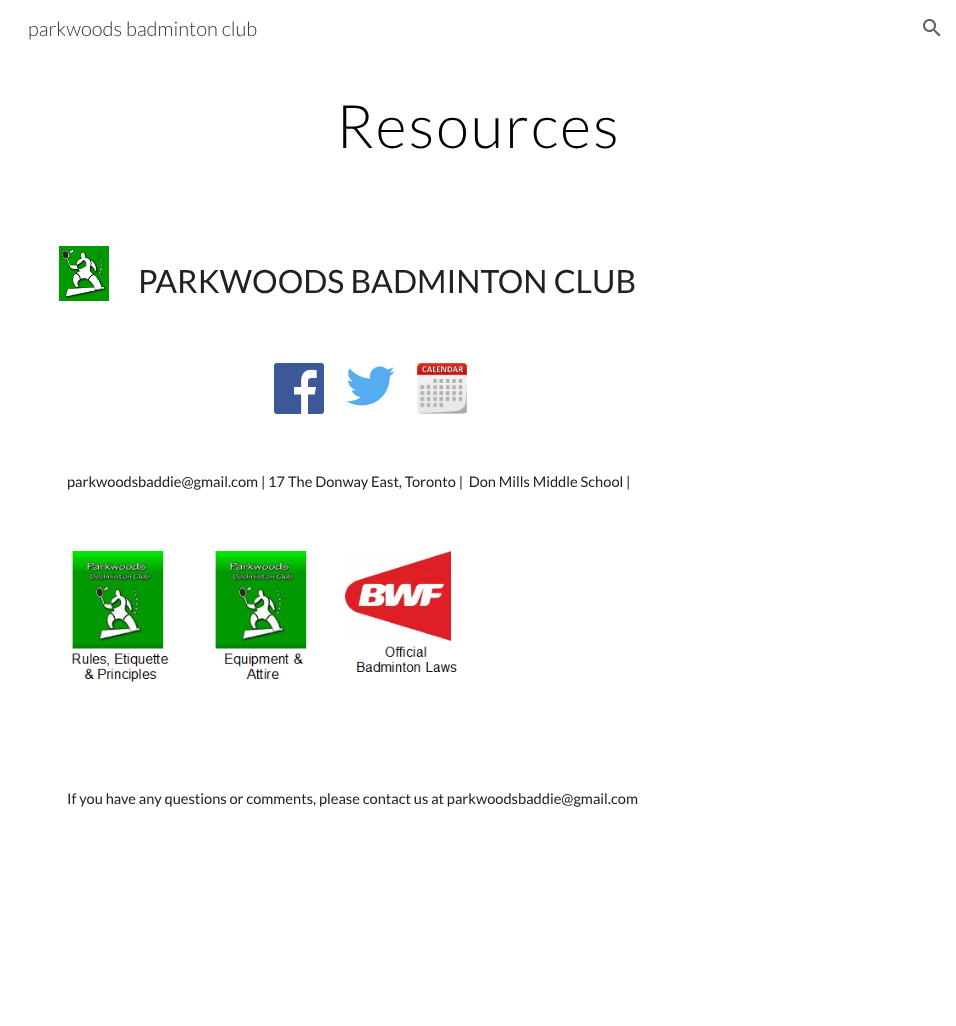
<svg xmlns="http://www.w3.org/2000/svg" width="956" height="1026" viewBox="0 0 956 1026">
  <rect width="100%" height="100%" fill="#ffffff"/>
  <text x="28" y="36" font-family="Lato" font-size="20" font-weight="300" fill="#333333">parkwoods badminton club</text>
  <image x="923" y="19" width="18" height="18" href="img1.png"/>
  <text x="336" y="148" font-family="Lato" font-size="60" font-weight="300" letter-spacing="2" fill="#000000">Resources</text>
  <image x="59" y="246" width="50" height="55" href="img2.png"/>
  <text x="138" y="293" font-family="Lato" font-size="32" fill="#212121">PARKWOODS BADMINTON CLUB</text>
  <image x="274" y="363" width="50" height="51" href="img3.png"/>
  <image x="346" y="366" width="49" height="40" href="img4.png"/>
  <image x="417" y="363" width="50" height="51" href="img5.png"/>
  <text x="67" y="487" font-family="Lato" font-size="14.65" fill="#212121" xml:space="preserve">parkwoodsbaddie@gmail.com | 17 The Donway East, Toronto |  Don Mills Middle School |</text>
  <image x="71" y="551" width="98" height="131" href="img6.png"/>
  <image x="215" y="551" width="92" height="128" href="img7.png"/>
  <image x="345" y="551" width="112" height="121" href="img8.png"/>
  <text x="67" y="804" font-family="Lato" font-size="14.65" fill="#212121">If you have any questions or comments, please contact us at parkwoodsbaddie@gmail.com</text>
</svg>
